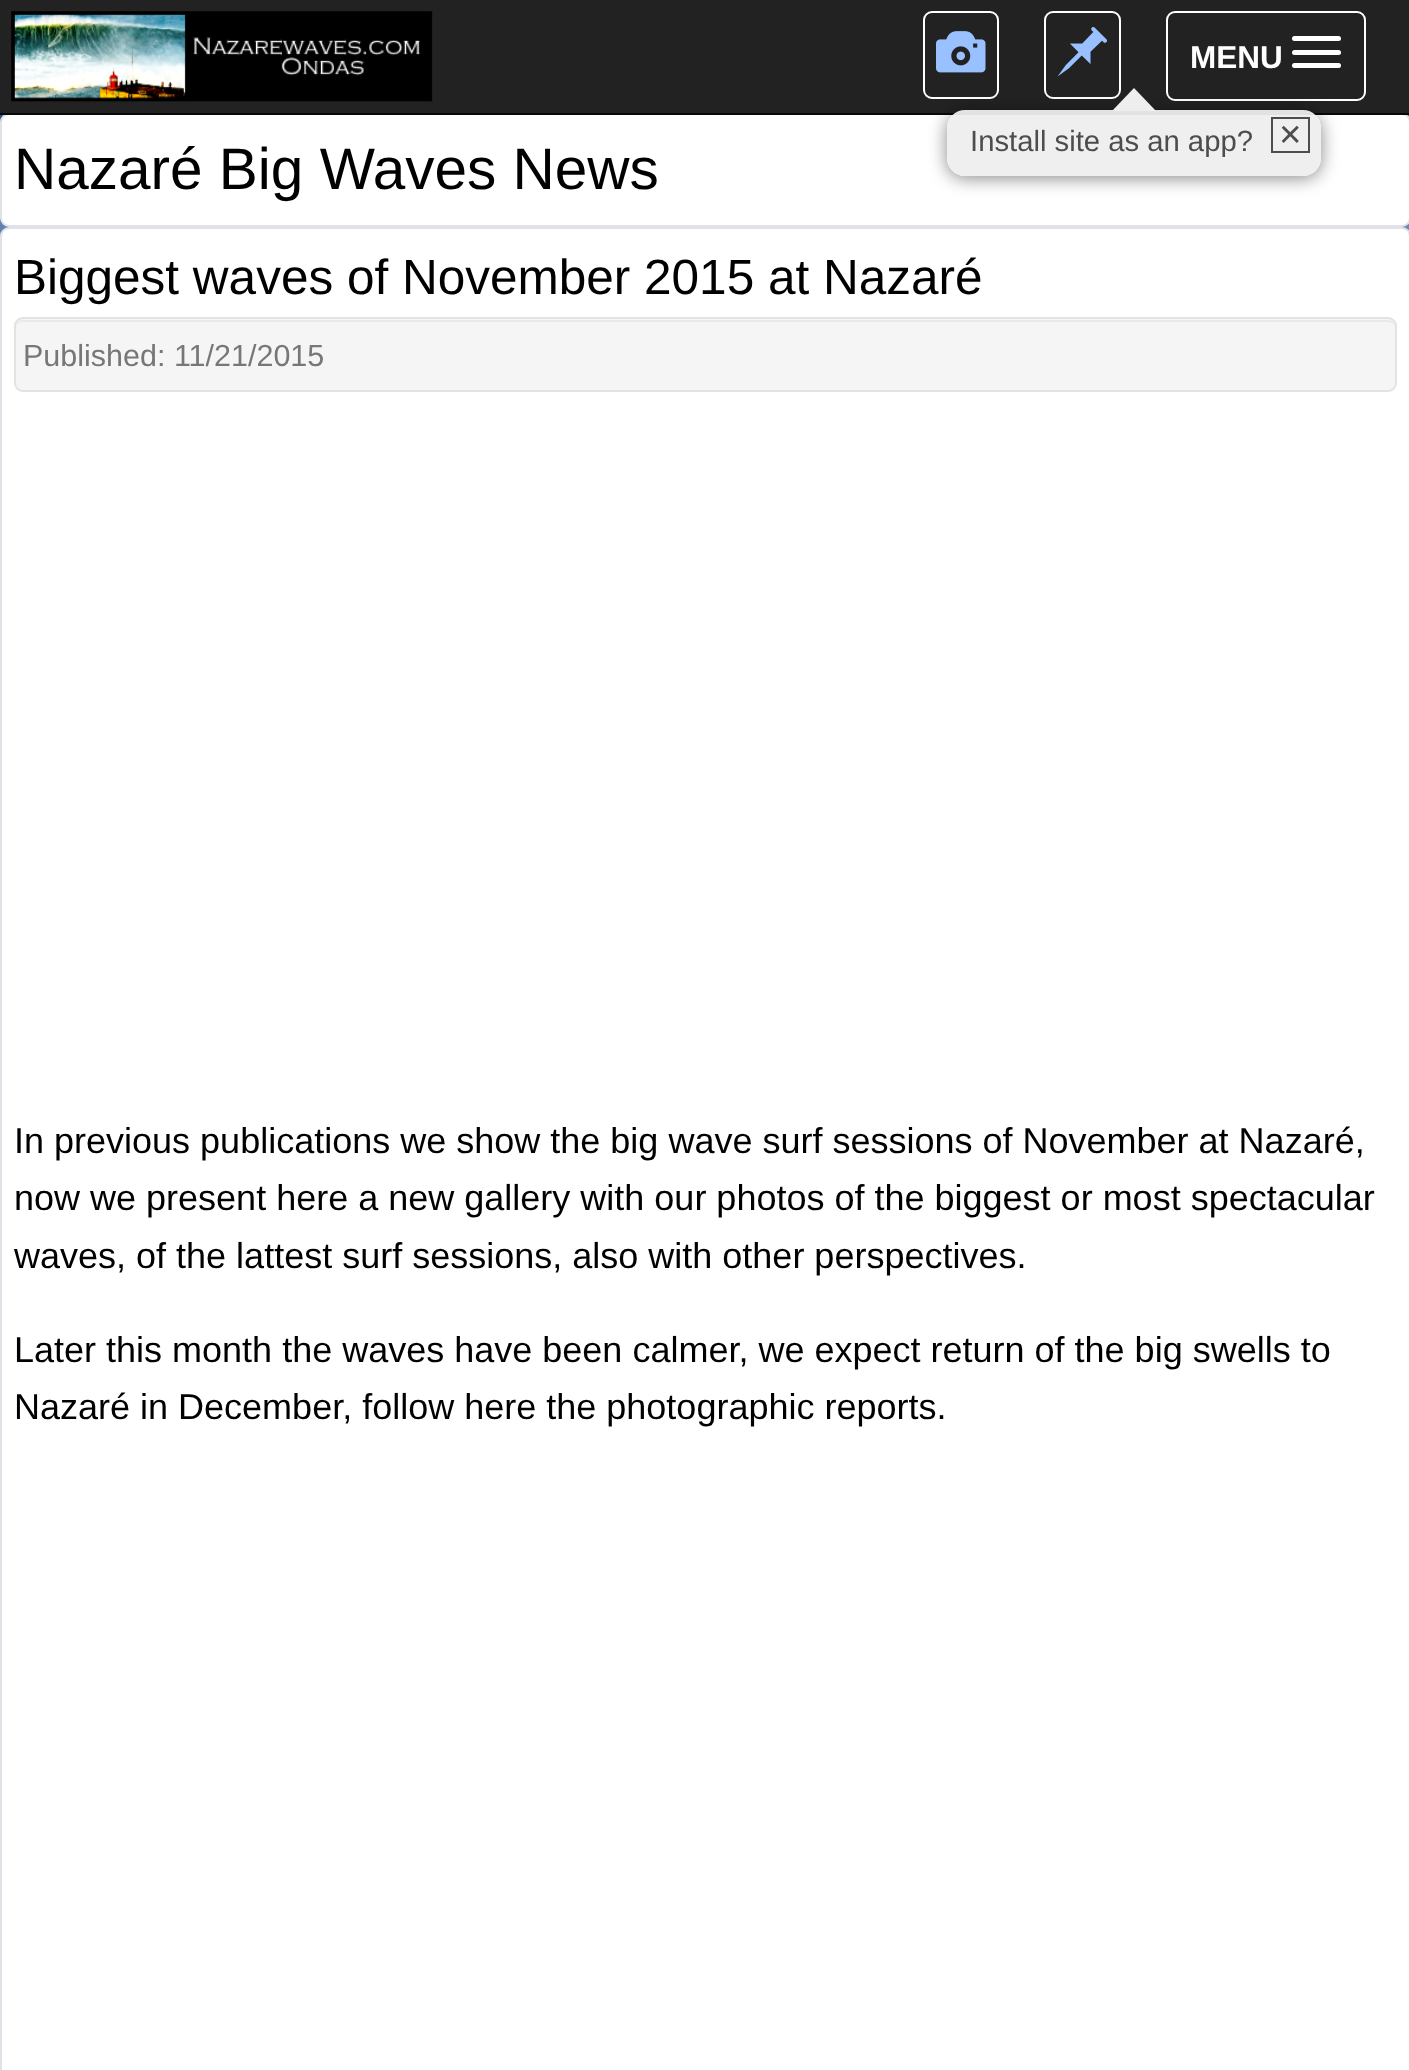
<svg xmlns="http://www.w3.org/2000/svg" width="1409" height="2070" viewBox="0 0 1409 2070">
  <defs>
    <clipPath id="clip1"><path d="M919 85H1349V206H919ZM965 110H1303C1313 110 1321 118 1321 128V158C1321 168 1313 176 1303 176H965C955 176 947 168 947 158V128C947 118 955 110 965 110Z" clip-rule="evenodd"/></clipPath>
    <filter id="blur1" x="-50%" y="-200%" width="200%" height="500%"><feGaussianBlur stdDeviation="9"/></filter>
  </defs>
  <rect width="100%" height="100%" fill="#ffffff"/>
  <image x="0" y="115" width="1409" height="121" href="img1.png"/>
  <rect x="0" y="0" width="1409" height="113" fill="#222222"/>
  <rect x="1" y="114" width="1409" height="112" rx="8" fill="#ffffff" stroke="#e1e1e8" stroke-width="2"/>
  <rect x="0" y="113" width="1409" height="2" fill="#080808"/>
  <image x="11" y="11" width="422" height="91" href="img2.png"/>
  <rect x="924" y="12" width="74" height="86" rx="8" fill="none" stroke="#ffffff" stroke-width="2"/>
  <image x="936" y="31" width="50" height="42" href="img3.png"/>
  <rect x="1045" y="12" width="75" height="86" rx="8" fill="none" stroke="#ffffff" stroke-width="2"/>
  <image x="1057" y="27" width="50" height="50" href="img4.png"/>
  <rect x="1167" y="12" width="198" height="88" rx="8" fill="none" stroke="#ffffff" stroke-width="2"/>
  <text x="1190" y="68" font-family="Liberation Sans" font-size="31.5" font-weight="bold" fill="#ffffff">MENU</text>
  <rect x="1292" y="36" width="49" height="5" rx="2.5" fill="#ffffff"/>
  <rect x="1292" y="50" width="49" height="5" rx="2.5" fill="#ffffff"/>
  <rect x="1292" y="63" width="49" height="5" rx="2.5" fill="#ffffff"/>
  <g clip-path="url(#clip1)">
    <rect x="947" y="113" width="374" height="65" rx="18" fill="#000000" fill-opacity="0.47" filter="url(#blur1)"/>
  </g>
  <rect x="947" y="110" width="374" height="66" rx="18" fill="#eeeeee" fill-opacity="0.95"/>
  <path d="M1156 111H1112L1134 88Z" fill="#eeeeee"/>
  <text x="970" y="151" font-family="Liberation Sans" font-size="29.25" fill="#4d4d4d">Install site as an app?</text>
  <rect x="1272" y="118" width="37" height="34" fill="none" stroke="#4d4d4d" stroke-width="2"/>
  <text x="1278" y="145" font-family="DejaVu Sans" font-size="29.25" fill="#4d4d4d">✕</text>
  <text x="14" y="189" font-family="Liberation Sans" font-size="58.5" fill="#000000">Nazaré Big Waves News</text>
  <rect x="1" y="228" width="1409" height="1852" rx="8" fill="#ffffff" stroke="#e1e1e8" stroke-width="2"/>
  <text x="14" y="294" font-family="Liberation Sans" font-size="49.5" fill="#000000">Biggest waves of November 2015 at Nazaré</text>
  <rect x="14" y="317" width="1383" height="75" rx="9" fill="#f5f5f5"/>
  <path d="M22 322H1388C1392 322 1395 325 1395 328C1395 324 1393 320 1388 320H23C18 320 16 324 16 328C16 325 19 322 22 322Z" fill="#e9e9e9"/>
  <rect x="15" y="318" width="1381" height="73" rx="8" fill="none" stroke="#e3e3e3" stroke-width="2"/>
  <text x="23" y="366" font-family="Liberation Sans" font-size="30.5" fill="#777777">Published: 11/21/2015</text>
  <text x="14" y="1153" font-family="Liberation Sans" font-size="36" fill="#000000">In previous publications we show the big wave surf sessions of November at Nazaré,</text>
  <text x="14" y="1210" font-family="Liberation Sans" font-size="36" fill="#000000">now we present here a new gallery with our photos of the biggest or most spectacular</text>
  <text x="14" y="1268" font-family="Liberation Sans" font-size="36" fill="#000000">waves, of the lattest surf sessions, also with other perspectives.</text>
  <text x="14" y="1362" font-family="Liberation Sans" font-size="36" fill="#000000">Later this month the waves have been calmer, we expect return of the big swells to</text>
  <text x="14" y="1419" font-family="Liberation Sans" font-size="36" fill="#000000">Nazaré in December, follow here the photographic reports.</text>
</svg>
